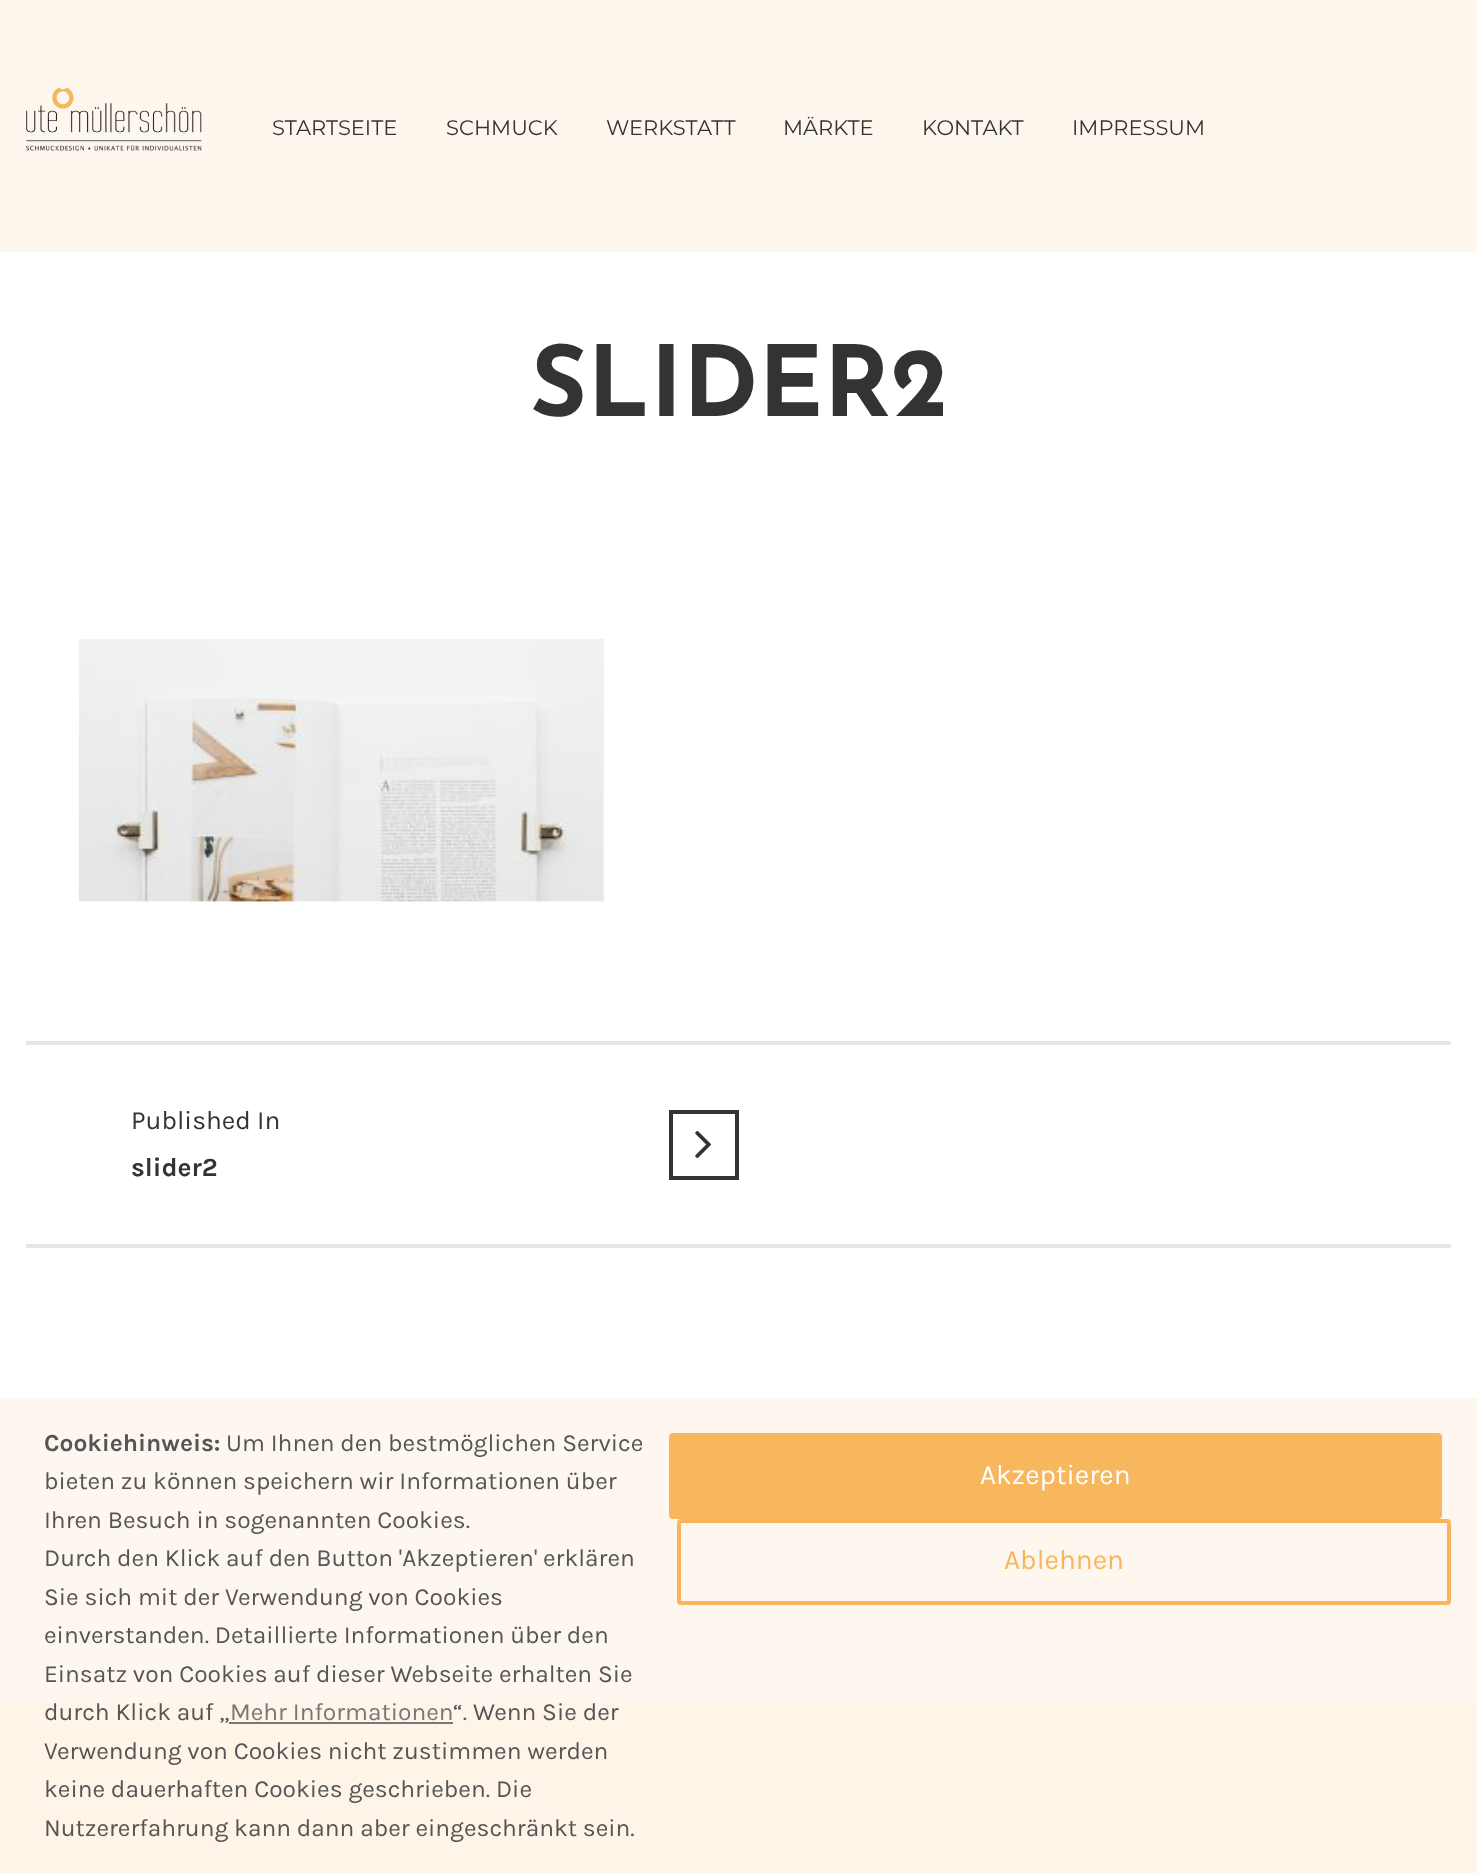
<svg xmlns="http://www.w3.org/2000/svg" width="1477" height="1873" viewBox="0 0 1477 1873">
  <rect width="100%" height="100%" fill="#ffffff"/>
  <rect x="0" y="1381" width="1477" height="322" fill="#fef7ef"/>
  <rect x="0" y="0" width="1477" height="252" fill="#fef7ee"/>
  <image x="26" y="87" width="176" height="64" href="img1.png"/>
  <text x="272" y="135" font-family="Montserrat" font-size="21" fill="#333333">STARTSEITE</text>
  <text x="446" y="135" font-family="Montserrat" font-size="21" fill="#333333">SCHMUCK</text>
  <text x="606" y="135" font-family="Montserrat" font-size="21" fill="#333333">WERKSTATT</text>
  <text x="783" y="135" font-family="Montserrat" font-size="21" fill="#333333">MÄRKTE</text>
  <text x="922" y="135" font-family="Montserrat" font-size="21" fill="#333333">KONTAKT</text>
  <text x="1072" y="135" font-family="Montserrat" font-size="21" fill="#333333">IMPRESSUM</text>
  <text x="530" y="416" font-family="Josefin Sans" font-size="98" font-weight="bold" fill="#333333">SLIDER2</text>
  <image x="78" y="639" width="526" height="263" href="img2.png"/>
  <rect x="26" y="1041" width="1425" height="4" fill="#e6e6e6"/>
  <rect x="26" y="1244" width="1425" height="4" fill="#e6e6e6"/>
  <text x="131" y="1129" font-family="Karla" font-size="26.25" fill="#333333">Published In</text>
  <text x="131" y="1176" font-family="Karla" font-size="26.25" font-weight="bold" fill="#333333">slider2</text>
  <rect x="671" y="1112" width="66" height="66" fill="none" stroke="#333333" stroke-width="4"/>
  <image x="695" y="1130" width="16" height="29" href="img3.png"/>
  <rect x="0" y="1703" width="1477" height="170" fill="#fef4e7"/>
  <rect x="0" y="1381" width="1477" height="17" fill="#ffffff" fill-opacity="0.95"/>
  <text x="44" y="1451" font-family="Karla" font-size="24.5" font-weight="bold" fill="#555555">Cookiehinweis:</text>
  <text x="226" y="1451" font-family="Karla" font-size="24.5" fill="#555555">Um Ihnen den bestmöglichen Service</text>
  <text x="44" y="1489" font-family="Karla" font-size="24.5" fill="#555555">bieten zu können speichern wir Informationen über</text>
  <text x="44" y="1528" font-family="Karla" font-size="24.5" fill="#555555">Ihren Besuch in sogenannten Cookies.</text>
  <text x="44" y="1566" font-family="Karla" font-size="24.5" fill="#555555">Durch den Klick auf den Button 'Akzeptieren' erklären</text>
  <text x="44" y="1605" font-family="Karla" font-size="24.5" fill="#555555">Sie sich mit der Verwendung von Cookies</text>
  <text x="44" y="1643" font-family="Karla" font-size="24.5" fill="#555555">einverstanden. Detaillierte Informationen über den</text>
  <text x="44" y="1682" font-family="Karla" font-size="24.5" fill="#555555">Einsatz von Cookies auf dieser Webseite erhalten Sie</text>
  <text x="44" y="1720" font-family="Karla" font-size="24.5" fill="#555555">durch Klick auf „</text>
  <text x="230" y="1720" font-family="Karla" font-size="24.5" fill="#777777">Mehr Informationen</text>
  <rect x="229" y="1722" width="224" height="2" fill="#777777"/>
  <text x="453" y="1720" font-family="Karla" font-size="24.5" fill="#555555">“. Wenn Sie der</text>
  <text x="44" y="1759" font-family="Karla" font-size="24.5" fill="#555555">Verwendung von Cookies nicht zustimmen werden</text>
  <text x="44" y="1797" font-family="Karla" font-size="24.5" fill="#555555">keine dauerhaften Cookies geschrieben. Die</text>
  <text x="44" y="1836" font-family="Karla" font-size="24.5" fill="#555555">Nutzererfahrung kann dann aber eingeschränkt sein.</text>
  <rect x="669" y="1433" width="773" height="86" rx="4" fill="#f8b65d"/>
  <text x="980" y="1484" font-family="Karla" font-size="28" fill="#ffffff">Akzeptieren</text>
  <rect x="679" y="1521" width="770" height="82" rx="2" fill="none" stroke="#f8b55d" stroke-width="4"/>
  <text x="1004" y="1569" font-family="Karla" font-size="28" fill="#f8b55d">Ablehnen</text>
</svg>
